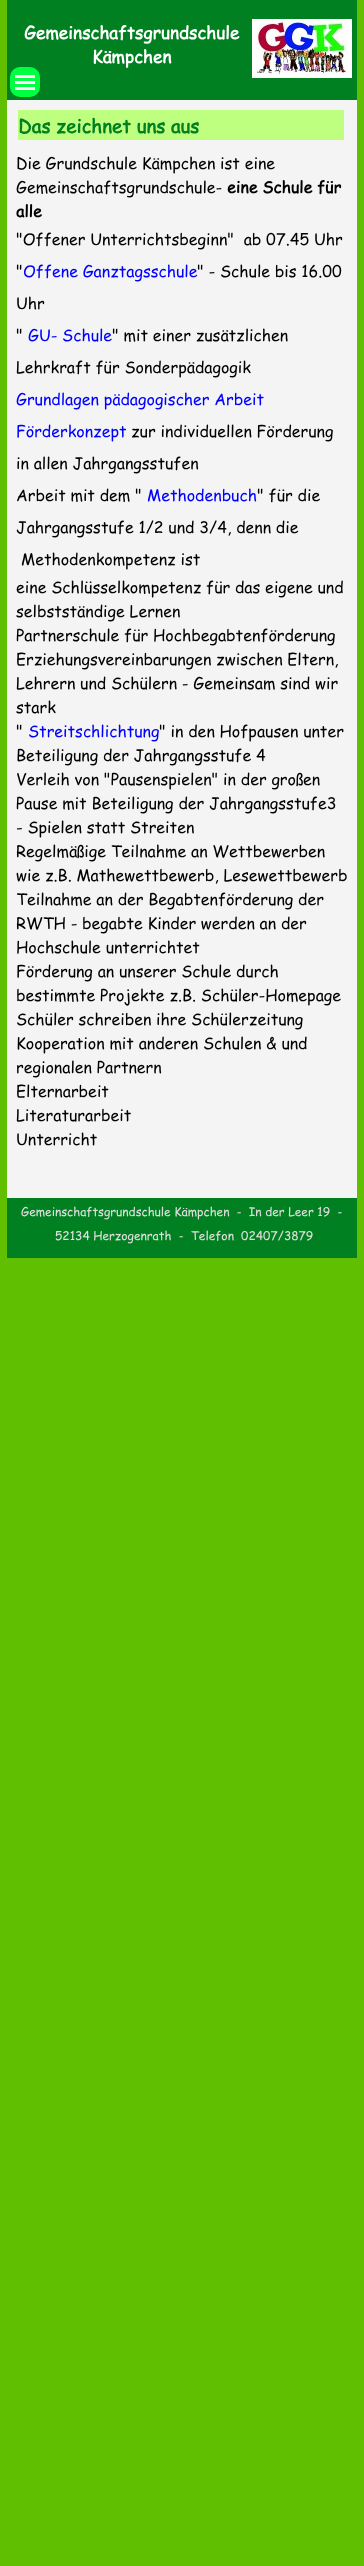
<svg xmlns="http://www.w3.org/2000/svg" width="364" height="2566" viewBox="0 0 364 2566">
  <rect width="100%" height="100%" fill="#60bf00"/>
  <rect x="7" y="0" width="350" height="100" fill="#008020"/>
  <text x="24" y="39" font-family="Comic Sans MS" font-size="17.25" font-weight="bold" fill="#ffffff">Gemeinschaftsgrundschule</text>
  <text x="92" y="63" font-family="Comic Sans MS" font-size="17.25" font-weight="bold" fill="#ffffff">Kämpchen</text>
  <image x="252" y="19" width="100" height="59" href="img1.png"/>
  <rect x="10" y="67" width="30" height="30" rx="10" fill="#00ff40"/>
  <rect x="15" y="75" width="20" height="3" fill="#ffffff"/>
  <rect x="15" y="81" width="20" height="3" fill="#ffffff"/>
  <rect x="15" y="87" width="20" height="3" fill="#ffffff"/>
  <rect x="7" y="100" width="350" height="1098" fill="#f4f4f4"/>
  <rect x="18" y="110" width="326" height="30" fill="#bfff80"/>
  <text x="18" y="133" font-family="Comic Sans MS" font-size="18.75" font-weight="bold" fill="#008020">Das zeichnet uns aus</text>
  <text x="16" y="169" font-family="Comic Sans MS" font-size="16" fill="#000000">Die Grundschule Kämpchen ist eine</text>
  <text x="16" y="193" font-family="Comic Sans MS" font-size="16" fill="#000000">Gemeinschaftsgrundschule-</text>
  <text x="227" y="193" font-family="Comic Sans MS" font-size="16" font-weight="bold" fill="#000000">eine Schule für</text>
  <text x="16" y="217" font-family="Comic Sans MS" font-size="16" font-weight="bold" fill="#000000">alle</text>
  <text x="16" y="245" font-family="Comic Sans MS" font-size="16" fill="#000000" xml:space="preserve">"Offener Unterrichtsbeginn"  ab 07.45 Uhr</text>
  <text x="16" y="277" font-family="Comic Sans MS" font-size="16" fill="#000000">"</text>
  <text x="23" y="277" font-family="Comic Sans MS" font-size="16" fill="#0000ff">Offene Ganztagsschule</text>
  <text x="197" y="277" font-family="Comic Sans MS" font-size="16" fill="#000000">" - Schule bis 16.00</text>
  <text x="16" y="309" font-family="Comic Sans MS" font-size="16" fill="#000000">Uhr</text>
  <text x="16" y="341" font-family="Comic Sans MS" font-size="16" fill="#000000">"</text>
  <text x="28" y="341" font-family="Comic Sans MS" font-size="16" fill="#0000ff">GU- Schule</text>
  <text x="112" y="341" font-family="Comic Sans MS" font-size="16" fill="#000000">" mit einer zusätzlichen</text>
  <text x="16" y="373" font-family="Comic Sans MS" font-size="16" fill="#000000">Lehrkraft für Sonderpädagogik</text>
  <text x="16" y="405" font-family="Comic Sans MS" font-size="16" fill="#0000ff">Grundlagen pädagogischer Arbeit</text>
  <text x="16" y="437" font-family="Comic Sans MS" font-size="16" fill="#0000ff">Förderkonzept</text>
  <text x="131" y="437" font-family="Comic Sans MS" font-size="16" fill="#000000">zur individuellen Förderung</text>
  <text x="16" y="469" font-family="Comic Sans MS" font-size="16" fill="#000000">in allen Jahrgangsstufen</text>
  <text x="16" y="501" font-family="Comic Sans MS" font-size="16" fill="#000000">Arbeit mit dem "</text>
  <text x="147" y="501" font-family="Comic Sans MS" font-size="16" fill="#0000ff">Methodenbuch</text>
  <text x="257" y="501" font-family="Comic Sans MS" font-size="16" fill="#000000">" für die</text>
  <text x="16" y="533" font-family="Comic Sans MS" font-size="16" fill="#000000">Jahrgangsstufe 1/2 und 3/4, denn die</text>
  <text x="21" y="565" font-family="Comic Sans MS" font-size="16" fill="#000000">Methodenkompetenz ist</text>
  <text x="16" y="593" font-family="Comic Sans MS" font-size="16" fill="#000000">eine Schlüsselkompetenz für das eigene und</text>
  <text x="16" y="617" font-family="Comic Sans MS" font-size="16" fill="#000000">selbstständige Lernen</text>
  <text x="16" y="641" font-family="Comic Sans MS" font-size="16" fill="#000000">Partnerschule für Hochbegabtenförderung</text>
  <text x="16" y="665" font-family="Comic Sans MS" font-size="16" fill="#000000">Erziehungsvereinbarungen zwischen Eltern,</text>
  <text x="16" y="689" font-family="Comic Sans MS" font-size="16" fill="#000000">Lehrern und Schülern - Gemeinsam sind wir</text>
  <text x="16" y="713" font-family="Comic Sans MS" font-size="16" fill="#000000">stark</text>
  <text x="16" y="737" font-family="Comic Sans MS" font-size="16" fill="#000000">"</text>
  <text x="28" y="737" font-family="Comic Sans MS" font-size="16" fill="#0000ff">Streitschlichtung</text>
  <text x="159" y="737" font-family="Comic Sans MS" font-size="16" fill="#000000">" in den Hofpausen unter</text>
  <text x="16" y="761" font-family="Comic Sans MS" font-size="16" fill="#000000">Beteiligung der Jahrgangsstufe 4</text>
  <text x="16" y="785" font-family="Comic Sans MS" font-size="16" fill="#000000">Verleih von "Pausenspielen" in der großen</text>
  <text x="16" y="809" font-family="Comic Sans MS" font-size="16" fill="#000000">Pause mit Beteiligung der Jahrgangsstufe3</text>
  <text x="16" y="833" font-family="Comic Sans MS" font-size="16" fill="#000000">- Spielen statt Streiten</text>
  <text x="16" y="857" font-family="Comic Sans MS" font-size="16" fill="#000000">Regelmäßige Teilnahme an Wettbewerben</text>
  <text x="16" y="881" font-family="Comic Sans MS" font-size="16" fill="#000000">wie z.B. Mathewettbewerb, Lesewettbewerb</text>
  <text x="16" y="905" font-family="Comic Sans MS" font-size="16" fill="#000000">Teilnahme an der Begabtenförderung der</text>
  <text x="16" y="929" font-family="Comic Sans MS" font-size="16" fill="#000000">RWTH - begabte Kinder werden an der</text>
  <text x="16" y="953" font-family="Comic Sans MS" font-size="16" fill="#000000">Hochschule unterrichtet</text>
  <text x="16" y="977" font-family="Comic Sans MS" font-size="16" fill="#000000">Förderung an unserer Schule durch</text>
  <text x="16" y="1001" font-family="Comic Sans MS" font-size="16" fill="#000000">bestimmte Projekte z.B. Schüler-Homepage</text>
  <text x="16" y="1025" font-family="Comic Sans MS" font-size="16" fill="#000000">Schüler schreiben ihre Schülerzeitung</text>
  <text x="16" y="1049" font-family="Comic Sans MS" font-size="16" fill="#000000">Kooperation mit anderen Schulen &amp; und</text>
  <text x="16" y="1073" font-family="Comic Sans MS" font-size="16" fill="#000000">regionalen Partnern</text>
  <text x="16" y="1097" font-family="Comic Sans MS" font-size="16" fill="#000000">Elternarbeit</text>
  <text x="16" y="1121" font-family="Comic Sans MS" font-size="16" fill="#000000">Literaturarbeit</text>
  <text x="16" y="1145" font-family="Comic Sans MS" font-size="16" fill="#000000">Unterricht</text>
  <rect x="7" y="1198" width="350" height="60" fill="#008020"/>
  <text x="21" y="1216" font-family="Comic Sans MS" font-size="12" fill="#e0e0e0" xml:space="preserve">Gemeinschaftsgrundschule Kämpchen  -  In der Leer 19  -</text>
  <text x="55" y="1240" font-family="Comic Sans MS" font-size="12" fill="#e0e0e0" xml:space="preserve">52134 Herzogenrath  -  Telefon  02407/3879</text>
</svg>
